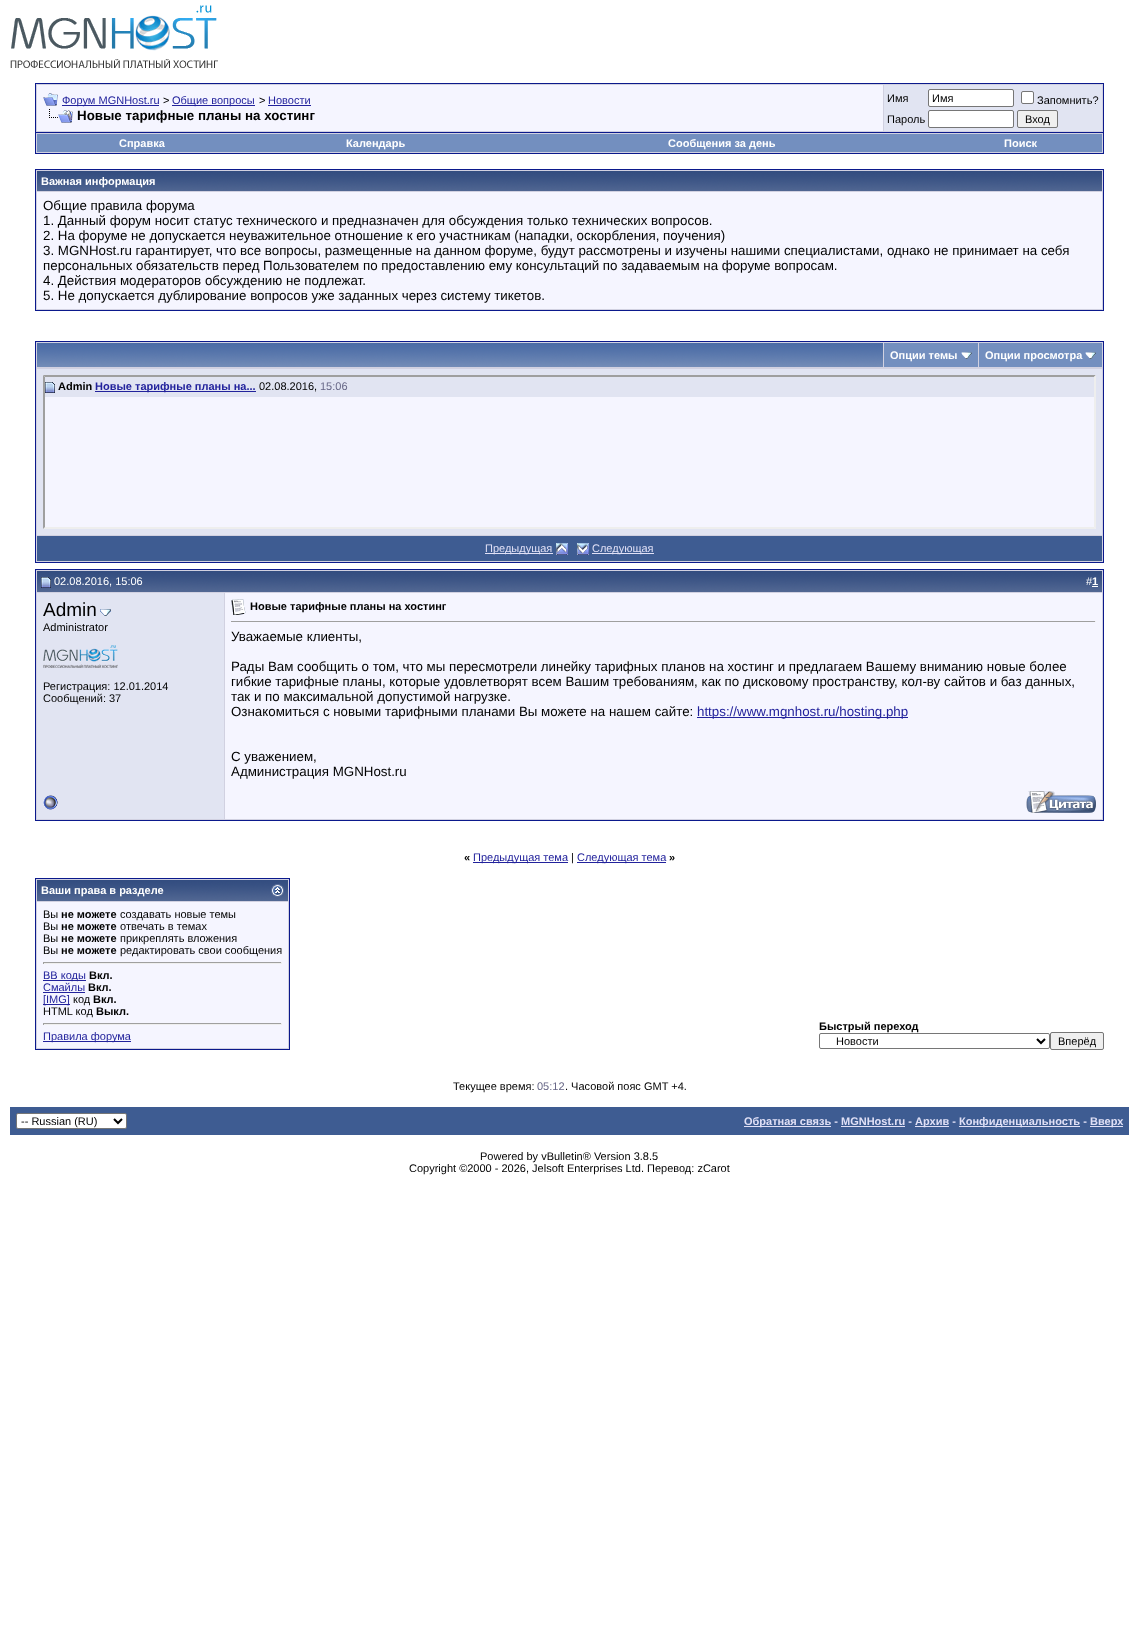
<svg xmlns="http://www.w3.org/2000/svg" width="1139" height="1646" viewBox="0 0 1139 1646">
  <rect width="100%" height="100%" fill="#ffffff"/>
  <image x="10" y="5" width="208" height="63" href="img1.png"/>
  <rect x="35.5" y="83.5" width="1068" height="49" fill="#d1d1e1" stroke="#0b198c"/>
  <rect x="37" y="85" width="846" height="46" fill="#f5f5ff"/>
  <image x="43" y="93" width="15" height="13" href="img2.png"/>
  <rect x="62" y="105" width="97" height="1" fill="#22229c"/>
  <text x="62" y="104" font-family="Liberation Sans" font-size="11" fill="#22229c">Форум MGNHost.ru</text>
  <text x="163" y="104" font-family="Liberation Sans" font-size="11" fill="#000000">&gt;</text>
  <rect x="172" y="105" width="83" height="1" fill="#22229c"/>
  <text x="172" y="104" font-family="Liberation Sans" font-size="11" fill="#22229c">Общие вопросы</text>
  <text x="259" y="104" font-family="Liberation Sans" font-size="11" fill="#000000">&gt;</text>
  <text x="268" y="104" font-family="Liberation Sans" font-size="11" fill="#22229c">Новости</text>
  <rect x="268" y="105" width="43" height="1" fill="#22229c"/>
  <image x="49" y="109" width="24" height="14" href="img3.png"/>
  <text x="77" y="120" font-family="Liberation Sans" font-size="13.33" font-weight="bold" fill="#000000">Новые тарифные планы на хостинг</text>
  <rect x="884" y="85" width="218" height="46" fill="#e1e4f2"/>
  <text x="887" y="102" font-family="Liberation Sans" font-size="11" fill="#000000">Имя</text>
  <rect x="928.5" y="89.5" width="85" height="17" rx="1.5" fill="#ffffff" stroke="#767676"/>
  <text x="932" y="102" font-family="Liberation Sans" font-size="11" fill="#000000">Имя</text>
  <rect x="1021.5" y="91.5" width="12" height="12" rx="1.5" fill="#ffffff" stroke="#767676"/>
  <text x="1037" y="104" font-family="Liberation Sans" font-size="11" fill="#000000">Запомнить?</text>
  <text x="887" y="123" font-family="Liberation Sans" font-size="11" fill="#000000">Пароль</text>
  <rect x="928.5" y="110.5" width="85" height="17" rx="1.5" fill="#ffffff" stroke="#767676"/>
  <rect x="1017.5" y="110.5" width="40" height="17" rx="1.5" fill="#efefef" stroke="#767676"/>
  <text x="1025" y="123" font-family="Liberation Sans" font-size="11" fill="#000000">Вход</text>
  <rect x="36" y="133" width="1067" height="20" fill="#d1d1e1"/>
  <rect x="1103" y="133" width="1" height="21" fill="#0b198c"/>
  <rect x="35" y="153" width="1069" height="1" fill="#0b198c"/>
  <rect x="35" y="133" width="1" height="21" fill="#0b198c"/>
  <rect x="37" y="134" width="1065" height="18" fill="#738fbf"/>
  <text x="119" y="147" font-family="Liberation Sans" font-size="11" font-weight="bold" fill="#ffffff">Справка</text>
  <text x="346" y="147" font-family="Liberation Sans" font-size="11" font-weight="bold" fill="#ffffff">Календарь</text>
  <text x="668" y="147" font-family="Liberation Sans" font-size="11" font-weight="bold" fill="#ffffff">Сообщения за день</text>
  <text x="1004" y="147" font-family="Liberation Sans" font-size="11" font-weight="bold" fill="#ffffff">Поиск</text>
  <rect x="35.5" y="169.5" width="1068" height="141" fill="#d1d1e1" stroke="#0b198c"/>
  <image x="37" y="171" width="1065" height="20" href="img4.png"/>
  <text x="41" y="185" font-family="Liberation Sans" font-size="11" font-weight="bold" fill="#ffffff">Важная информация</text>
  <rect x="37" y="192" width="1065" height="117" fill="#f5f5ff"/>
  <text x="43" y="210" font-family="Liberation Sans" font-size="13.33" fill="#000000">Общие правила форума</text>
  <text x="43" y="225" font-family="Liberation Sans" font-size="13.33" fill="#000000">1. Данный форум носит статус технического и предназначен для обсуждения только технических вопросов.</text>
  <text x="43" y="240" font-family="Liberation Sans" font-size="13.33" fill="#000000">2. На форуме не допускается неуважительное отношение к его участникам (нападки, оскорбления, поучения)</text>
  <text x="43" y="255" font-family="Liberation Sans" font-size="13.33" fill="#000000">3. MGNHost.ru гарантирует, что все вопросы, размещенные на данном форуме, будут рассмотрены и изучены нашими специалистами, однако не принимает на себя</text>
  <text x="43" y="270" font-family="Liberation Sans" font-size="13.33" fill="#000000">персональных обязательств перед Пользователем по предоставлению ему консультаций по задаваемым на форуме вопросам.</text>
  <text x="43" y="285" font-family="Liberation Sans" font-size="13.33" fill="#000000">4. Действия модераторов обсуждению не подлежат.</text>
  <text x="43" y="300" font-family="Liberation Sans" font-size="13.33" fill="#000000">5. Не допускается дублирование вопросов уже заданных через систему тикетов.</text>
  <rect x="36" y="342" width="1067" height="220" fill="#d1d1e1"/>
  <rect x="35" y="341" width="1069" height="1" fill="#0b198c"/>
  <rect x="1103" y="341" width="1" height="222" fill="#0b198c"/>
  <rect x="35" y="341" width="1" height="27" fill="#0b198c"/>
  <image x="37" y="343" width="846" height="24" href="img5.png"/>
  <rect x="884" y="343" width="94" height="24" fill="#738fbf"/>
  <text x="890" y="359" font-family="Liberation Sans" font-size="11" font-weight="bold" fill="#ffffff">Опции темы</text>
  <image x="961" y="352" width="11" height="7" href="img6.png"/>
  <rect x="979" y="343" width="123" height="24" fill="#738fbf"/>
  <text x="985" y="359" font-family="Liberation Sans" font-size="11" font-weight="bold" fill="#ffffff">Опции просмотра</text>
  <image x="1085" y="352" width="11" height="7" href="img6.png"/>
  <rect x="35" y="562" width="1069" height="1" fill="#0b198c"/>
  <rect x="35" y="368" width="1" height="195" fill="#0b198c"/>
  <rect x="37" y="369" width="1065" height="166" fill="#e1e4f2"/>
  <rect x="43" y="375" width="1053" height="154" fill="#f5f5ff"/>
  <path d="M43 375H1096L1094 377H45Z" fill="#9f9f9f"/>
  <path d="M1096 375V529L1094 527V377Z" fill="#eeeeee"/>
  <path d="M1096 529H43L45 527H1094Z" fill="#eeeeee"/>
  <path d="M43 529V375L45 377V527Z" fill="#9f9f9f"/>
  <rect x="45" y="377" width="1049" height="20" fill="#e1e4f2"/>
  <image x="45" y="382" width="10" height="11" href="img7.png"/>
  <text x="58" y="390" font-family="Liberation Sans" font-size="11" font-weight="bold" fill="#000000">Admin</text>
  <rect x="95" y="391" width="161" height="1" fill="#22229c"/>
  <text x="95" y="390" font-family="Liberation Sans" font-size="11" font-weight="bold" fill="#22229c">Новые тарифные планы на...</text>
  <text x="259" y="390" font-family="Liberation Sans" font-size="11" fill="#000000">02.08.2016,</text>
  <text x="320" y="390" font-family="Liberation Sans" font-size="11" fill="#666686">15:06</text>
  <rect x="37" y="536" width="1065" height="25" fill="#3e5c92"/>
  <rect x="485" y="553" width="68" height="1" fill="#e0e0f6"/>
  <text x="485" y="552" font-family="Liberation Sans" font-size="11" fill="#e0e0f6">Предыдущая</text>
  <image x="556" y="543" width="12" height="12" href="img8.png"/>
  <image x="577" y="543" width="12" height="12" href="img9.png"/>
  <rect x="592" y="553" width="62" height="1" fill="#e0e0f6"/>
  <text x="592" y="552" font-family="Liberation Sans" font-size="11" fill="#e0e0f6">Следующая</text>
  <rect x="35.5" y="569.5" width="1068" height="251" fill="none" stroke="#0b198c"/>
  <image x="37" y="571" width="188" height="21" href="img10.png"/>
  <rect x="36" y="570" width="1067" height="1" fill="#d1d1e1"/>
  <rect x="36" y="592" width="189" height="1" fill="#d1d1e1"/>
  <rect x="36" y="570" width="1" height="215" fill="#d1d1e1"/>
  <image x="41" y="577" width="10" height="11" href="img11.png"/>
  <text x="54" y="585" font-family="Liberation Sans" font-size="11" fill="#ffffff">02.08.2016, 15:06</text>
  <image x="225" y="571" width="877" height="21" href="img12.png"/>
  <rect x="1102" y="570" width="1" height="250" fill="#d1d1e1"/>
  <rect x="225" y="592" width="878" height="1" fill="#d1d1e1"/>
  <text x="1086" y="585" font-family="Liberation Sans" font-size="11" fill="#ffffff">#</text>
  <text x="1092" y="585" font-family="Liberation Sans" font-size="11" font-weight="bold" fill="#ffffff">1</text>
  <rect x="1092" y="586" width="6" height="1" fill="#ffffff"/>
  <rect x="37" y="593" width="187" height="226" fill="#e1e4f2"/>
  <rect x="224" y="593" width="1" height="227" fill="#d1d1e1"/>
  <text x="43" y="616" font-family="Liberation Sans" font-size="19" fill="#000000">Admin</text>
  <image x="100" y="609" width="11" height="7" href="img13.png"/>
  <text x="43" y="631" font-family="Liberation Sans" font-size="11" fill="#000000">Administrator</text>
  <image x="43" y="645" width="75" height="23" href="img14.png"/>
  <text x="43" y="690" font-family="Liberation Sans" font-size="11" fill="#000000">Регистрация: 12.01.2014</text>
  <text x="43" y="702" font-family="Liberation Sans" font-size="11" fill="#000000">Сообщений: 37</text>
  <rect x="225" y="593" width="877" height="226" fill="#f5f5ff"/>
  <image x="231" y="599" width="15" height="16" href="img15.png"/>
  <text x="250" y="610" font-family="Liberation Sans" font-size="11" font-weight="bold" fill="#000000">Новые тарифные планы на хостинг</text>
  <rect x="231" y="621" width="865" height="1" fill="#9f9f9f"/>
  <rect x="1095" y="621" width="1" height="1" fill="#eeeeee"/>
  <text x="231" y="641" font-family="Liberation Sans" font-size="13.33" fill="#000000">Уважаемые клиенты,</text>
  <text x="231" y="671" font-family="Liberation Sans" font-size="13.33" fill="#000000">Рады Вам сообщить о том, что мы пересмотрели линейку тарифных планов на хостинг и предлагаем Вашему вниманию новые более</text>
  <text x="231" y="686" font-family="Liberation Sans" font-size="13.33" fill="#000000">гибкие тарифные планы, которые удовлетворят всем Вашим требованиям, как по дисковому пространству, кол-ву сайтов и баз данных,</text>
  <text x="231" y="701" font-family="Liberation Sans" font-size="13.33" fill="#000000">так и по максимальной допустимой нагрузке.</text>
  <text x="231" y="716" font-family="Liberation Sans" font-size="13.33" fill="#000000">Ознакомиться с новыми тарифными планами Вы можете на нашем сайте:</text>
  <rect x="697" y="717" width="211" height="1" fill="#22229c"/>
  <text x="697" y="716" font-family="Liberation Sans" font-size="13.33" fill="#22229c">https://www.mgnhost.ru/hosting.php</text>
  <text x="231" y="761" font-family="Liberation Sans" font-size="13.33" fill="#000000">С уважением,</text>
  <text x="231" y="776" font-family="Liberation Sans" font-size="13.33" fill="#000000">Администрация MGNHost.ru</text>
  <rect x="36" y="819" width="1067" height="1" fill="#d1d1e1"/>
  <rect x="36" y="785" width="1" height="35" fill="#d1d1e1"/>
  <image x="43" y="795" width="15" height="15" href="img16.png"/>
  <image x="1026" y="791" width="70" height="22" href="img17.png"/>
  <text x="464" y="861" font-family="Liberation Sans" font-size="11" font-weight="bold" fill="#000000">«</text>
  <rect x="473" y="862" width="95" height="1" fill="#22229c"/>
  <text x="473" y="861" font-family="Liberation Sans" font-size="11" fill="#22229c">Предыдущая тема</text>
  <text x="571" y="861" font-family="Liberation Sans" font-size="11" fill="#000000">|</text>
  <rect x="577" y="862" width="89" height="1" fill="#22229c"/>
  <text x="577" y="861" font-family="Liberation Sans" font-size="11" fill="#22229c">Следующая тема</text>
  <text x="669" y="861" font-family="Liberation Sans" font-size="11" font-weight="bold" fill="#000000">»</text>
  <rect x="35.5" y="878.5" width="254" height="171" fill="#d1d1e1" stroke="#0b198c"/>
  <image x="37" y="880" width="251" height="21" href="img18.png"/>
  <text x="41" y="894" font-family="Liberation Sans" font-size="11" font-weight="bold" fill="#ffffff">Ваши права в разделе</text>
  <image x="271" y="884" width="13" height="13" href="img19.png"/>
  <rect x="37" y="902" width="251" height="146" fill="#f5f5ff"/>
  <text x="43" y="918" font-family="Liberation Sans" font-size="11" fill="#000000">Вы</text>
  <text x="61" y="918" font-family="Liberation Sans" font-size="11" font-weight="bold" fill="#000000">не можете</text>
  <text x="120" y="918" font-family="Liberation Sans" font-size="11" fill="#000000">создавать новые темы</text>
  <text x="43" y="930" font-family="Liberation Sans" font-size="11" fill="#000000">Вы</text>
  <text x="61" y="930" font-family="Liberation Sans" font-size="11" font-weight="bold" fill="#000000">не можете</text>
  <text x="120" y="930" font-family="Liberation Sans" font-size="11" fill="#000000">отвечать в темах</text>
  <text x="43" y="942" font-family="Liberation Sans" font-size="11" fill="#000000">Вы</text>
  <text x="61" y="942" font-family="Liberation Sans" font-size="11" font-weight="bold" fill="#000000">не можете</text>
  <text x="120" y="942" font-family="Liberation Sans" font-size="11" fill="#000000">прикреплять вложения</text>
  <text x="43" y="954" font-family="Liberation Sans" font-size="11" fill="#000000">Вы</text>
  <text x="61" y="954" font-family="Liberation Sans" font-size="11" font-weight="bold" fill="#000000">не можете</text>
  <text x="120" y="954" font-family="Liberation Sans" font-size="11" fill="#000000">редактировать свои сообщения</text>
  <rect x="43" y="962" width="239" height="1" fill="#9f9f9f"/>
  <rect x="281" y="962" width="1" height="2" fill="#eeeeee"/>
  <rect x="43" y="963" width="239" height="1" fill="#eeeeee"/>
  <rect x="43" y="962" width="1" height="2" fill="#9f9f9f"/>
  <rect x="43" y="980" width="43" height="1" fill="#22229c"/>
  <text x="43" y="979" font-family="Liberation Sans" font-size="11" fill="#22229c">BB коды</text>
  <text x="89" y="979" font-family="Liberation Sans" font-size="11" font-weight="bold" fill="#000000">Вкл.</text>
  <text x="43" y="991" font-family="Liberation Sans" font-size="11" fill="#22229c">Смайлы</text>
  <rect x="43" y="992" width="42" height="1" fill="#22229c"/>
  <text x="88" y="991" font-family="Liberation Sans" font-size="11" font-weight="bold" fill="#000000">Вкл.</text>
  <rect x="43" y="1004" width="27" height="1" fill="#22229c"/>
  <text x="43" y="1003" font-family="Liberation Sans" font-size="11" fill="#22229c">[IMG]</text>
  <text x="73" y="1003" font-family="Liberation Sans" font-size="11" fill="#000000">код</text>
  <text x="93" y="1003" font-family="Liberation Sans" font-size="11" font-weight="bold" fill="#000000">Вкл.</text>
  <text x="43" y="1015" font-family="Liberation Sans" font-size="11" fill="#000000">HTML код</text>
  <text x="96" y="1015" font-family="Liberation Sans" font-size="11" font-weight="bold" fill="#000000">Выкл.</text>
  <rect x="43" y="1023" width="239" height="1" fill="#9f9f9f"/>
  <rect x="281" y="1023" width="1" height="2" fill="#eeeeee"/>
  <rect x="43" y="1024" width="239" height="1" fill="#eeeeee"/>
  <rect x="43" y="1023" width="1" height="2" fill="#9f9f9f"/>
  <rect x="43" y="1041" width="88" height="1" fill="#22229c"/>
  <text x="43" y="1040" font-family="Liberation Sans" font-size="11" fill="#22229c">Правила форума</text>
  <text x="819" y="1030" font-family="Liberation Sans" font-size="11" font-weight="bold" fill="#000000">Быстрый переход</text>
  <rect x="819.5" y="1033.5" width="230" height="15" rx="1.5" fill="none" stroke="#767676"/>
  <path d="M1037 1039L1041 1043L1045 1039" fill="none" stroke="#000000" stroke-width="2"/>
  <text x="836" y="1045" font-family="Liberation Sans" font-size="11" fill="#000000">Новости</text>
  <rect x="1050.5" y="1032.5" width="53" height="17" rx="1.5" fill="#efefef" stroke="#767676"/>
  <text x="1058" y="1045" font-family="Liberation Sans" font-size="11" fill="#000000">Вперёд</text>
  <text x="453" y="1090" font-family="Liberation Sans" font-size="11" fill="#000000">Текущее время:</text>
  <text x="537" y="1090" font-family="Liberation Sans" font-size="11" fill="#666686">05:12</text>
  <text x="565" y="1090" font-family="Liberation Sans" font-size="11" fill="#000000">. Часовой пояс GMT +4.</text>
  <rect x="10" y="1107" width="1119" height="28" fill="#3e5c92"/>
  <rect x="16.5" y="1113.5" width="110" height="15" rx="1.5" fill="#ffffff" stroke="#767676"/>
  <path d="M114 1119L118 1123L122 1119" fill="none" stroke="#000000" stroke-width="2"/>
  <text x="21" y="1125" font-family="Liberation Sans" font-size="11" fill="#000000">-- Russian (RU)</text>
  <rect x="744" y="1126" width="87" height="1" fill="#e0e0f6"/>
  <text x="744" y="1125" font-family="Liberation Sans" font-size="11" font-weight="bold" fill="#e0e0f6">Обратная связь - MGNHost.ru -</text>
  <rect x="841" y="1126" width="64" height="1" fill="#e0e0f6"/>
  <rect x="915" y="1126" width="34" height="1" fill="#e0e0f6"/>
  <text x="915" y="1125" font-family="Liberation Sans" font-size="11" font-weight="bold" fill="#e0e0f6">Архив -</text>
  <rect x="959" y="1126" width="121" height="1" fill="#e0e0f6"/>
  <text x="959" y="1125" font-family="Liberation Sans" font-size="11" font-weight="bold" fill="#e0e0f6">Конфиденциальность -</text>
  <rect x="1090" y="1126" width="33" height="1" fill="#e0e0f6"/>
  <text x="1090" y="1125" font-family="Liberation Sans" font-size="11" font-weight="bold" fill="#e0e0f6">Вверх</text>
  <text x="480" y="1160" font-family="Liberation Sans" font-size="11" fill="#000000">Powered by vBulletin® Version 3.8.5</text>
  <text x="409" y="1172" font-family="Liberation Sans" font-size="11" fill="#000000">Copyright ©2000 - 2026, Jelsoft Enterprises Ltd. Перевод: zCarot</text>
</svg>
